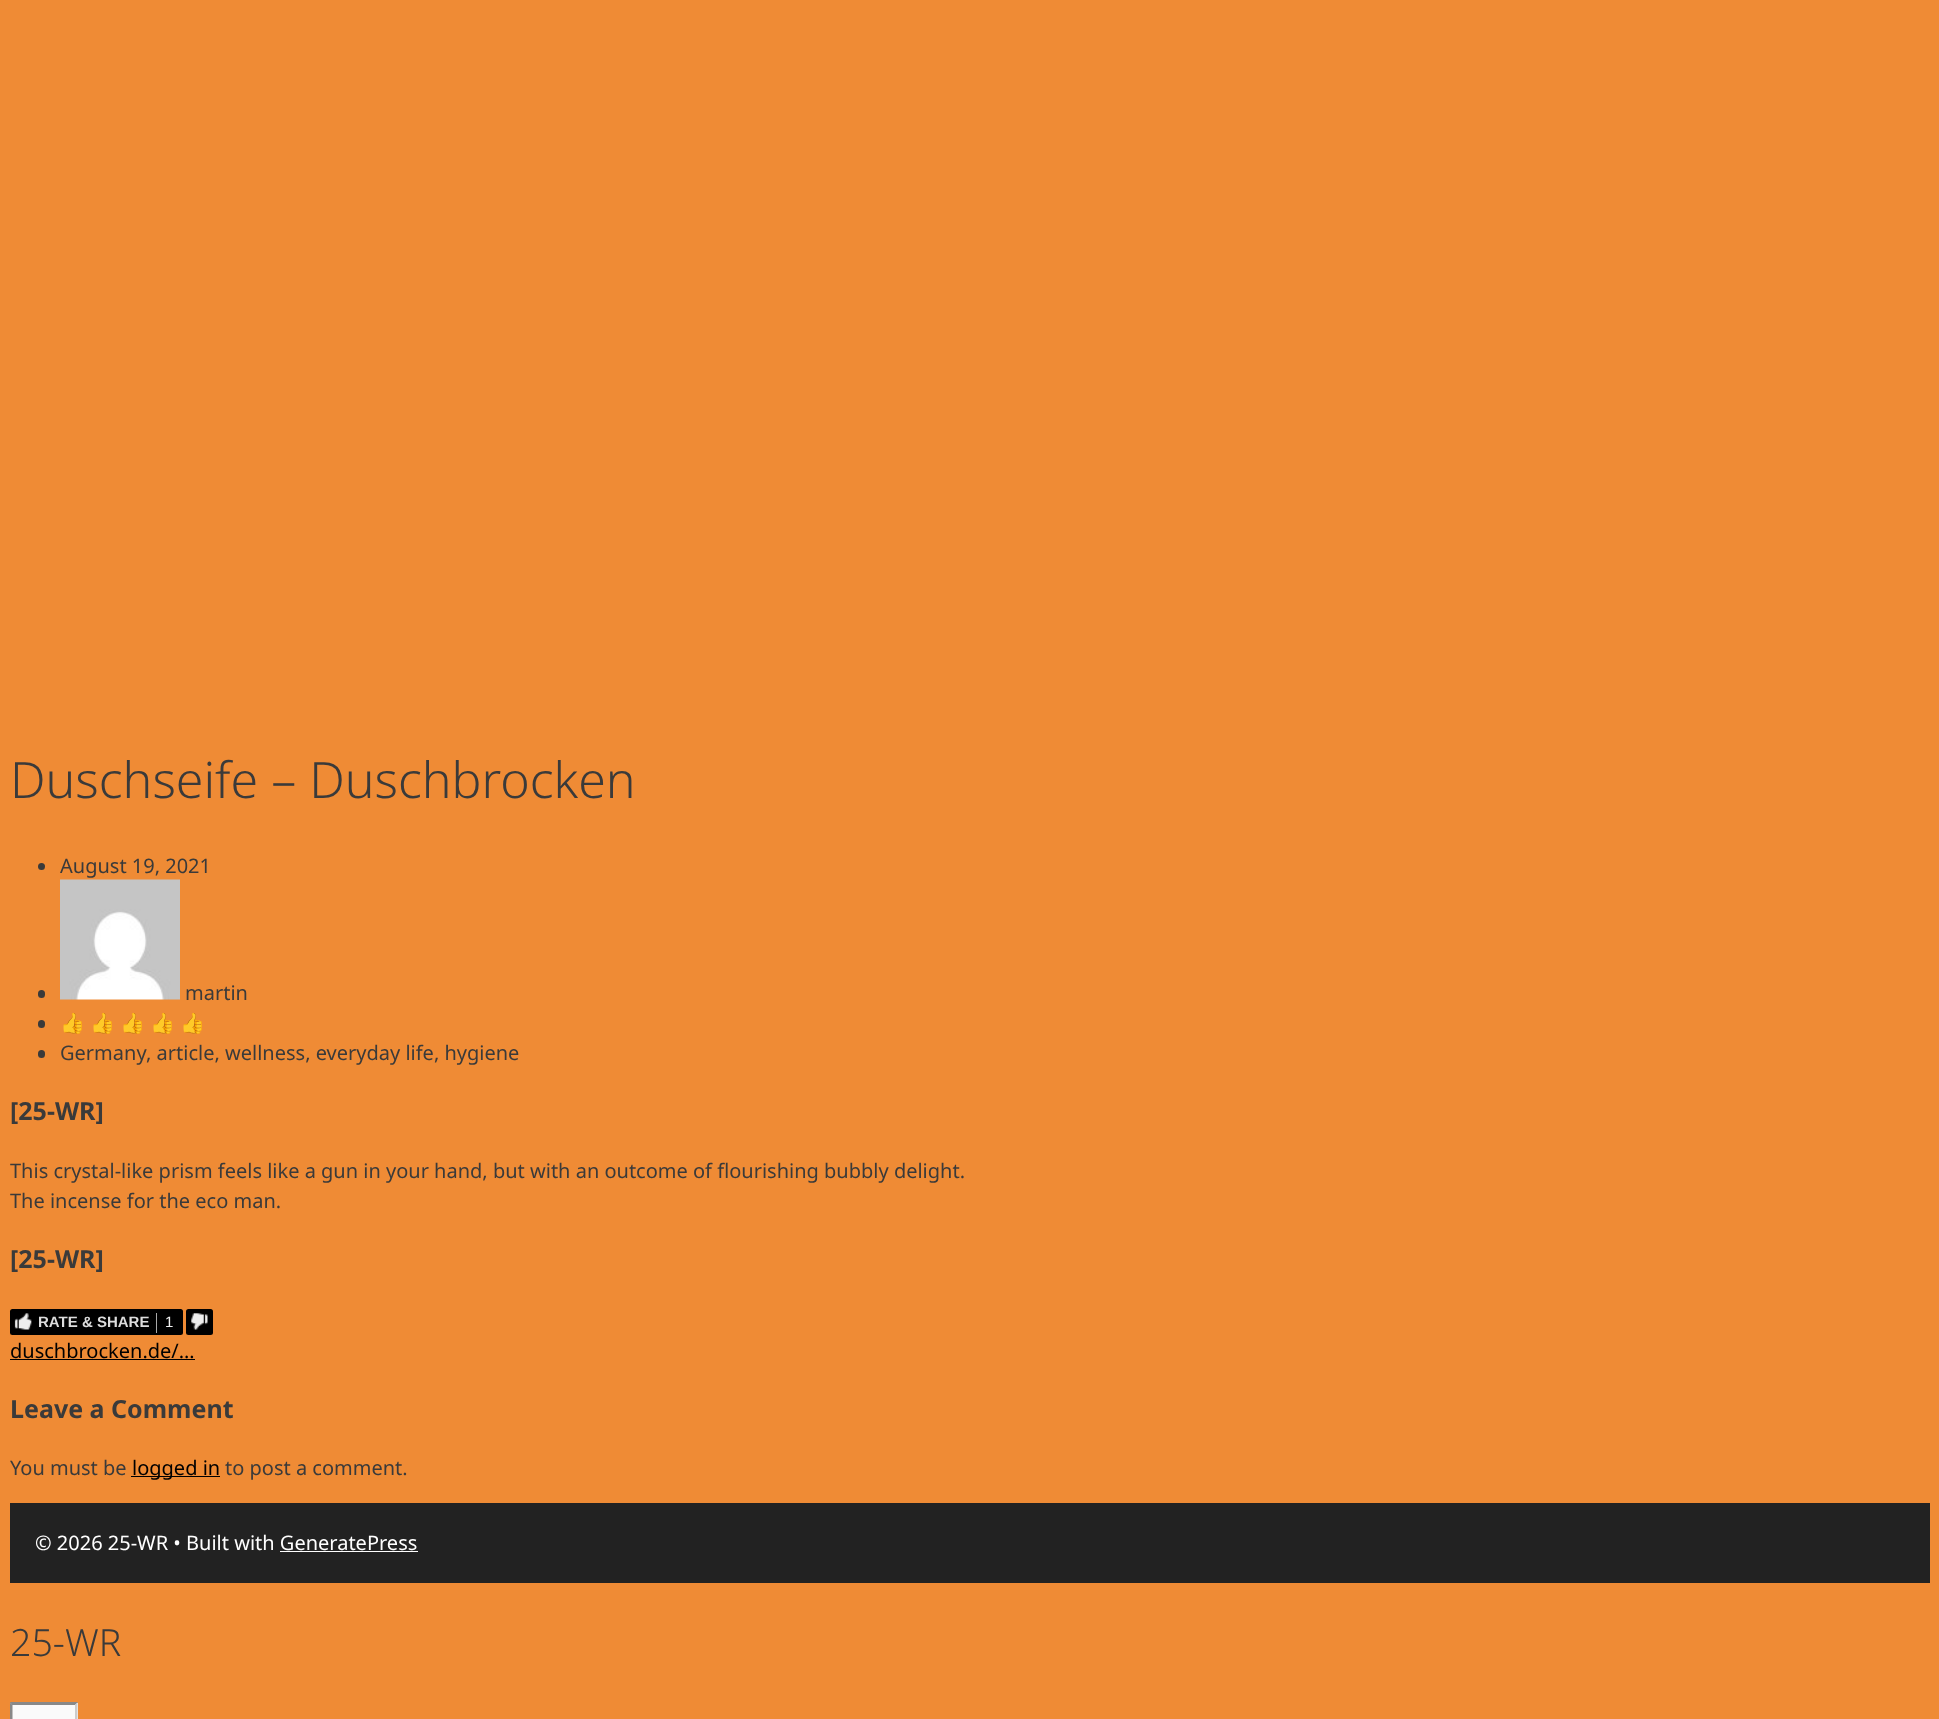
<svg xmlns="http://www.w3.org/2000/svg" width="1939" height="1719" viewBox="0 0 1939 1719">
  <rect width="100%" height="100%" fill="#ef8b35"/>
  <text x="10" y="798" font-family="Noto Sans" font-size="50" font-weight="300" fill="#3a3a3a">Duschseife – Duschbrocken</text>
  <circle cx="41.5" cy="866.5" r="3.5" fill="#3a3a3a"/>
  <text x="60" y="873" font-family="Noto Sans" font-size="20" fill="#3a3a3a">August 19, 2021</text>
  <rect x="38" y="990" width="7" height="8" rx="3.5" fill="#3a3a3a"/>
  <image x="60" y="879" width="120" height="121" href="img1.png"/>
  <text x="185" y="1000" font-family="Noto Sans" font-size="20" fill="#3a3a3a">martin</text>
  <rect x="38" y="1020" width="7" height="8" rx="3.5" fill="#3a3a3a"/>
  <text x="60" y="1030" font-family="Noto Color Emoji" font-size="20" fill="#3a3a3a">👍</text>
  <text x="90" y="1030" font-family="Noto Color Emoji" font-size="20" fill="#3a3a3a">👍</text>
  <text x="120" y="1030" font-family="Noto Color Emoji" font-size="20" fill="#3a3a3a">👍</text>
  <text x="150" y="1030" font-family="Noto Color Emoji" font-size="20" fill="#3a3a3a">👍</text>
  <text x="180" y="1030" font-family="Noto Color Emoji" font-size="20" fill="#3a3a3a">👍</text>
  <rect x="38" y="1050" width="7" height="8" rx="3.5" fill="#3a3a3a"/>
  <text x="60" y="1060" font-family="Noto Sans" font-size="20" fill="#3a3a3a">Germany</text>
  <text x="146" y="1060" font-family="Noto Sans" font-size="20" fill="#3a3a3a">, article, wellness, everyday life, hygiene</text>
  <text x="10" y="1120" font-family="Noto Sans" font-size="25" font-weight="bold" fill="#3a3a3a">[25-WR]</text>
  <text x="10" y="1178" font-family="Noto Sans" font-size="20" fill="#3a3a3a">This crystal-like prism feels like a gun in your hand, but with an outcome of flourishing bubbly delight.</text>
  <text x="10" y="1208" font-family="Noto Sans" font-size="20" fill="#3a3a3a">The incense for the eco man.</text>
  <text x="10" y="1268" font-family="Noto Sans" font-size="25" font-weight="bold" fill="#3a3a3a">[25-WR]</text>
  <rect x="10" y="1309" width="173" height="26" rx="2.5" fill="#000000"/>
  <image x="14" y="1313" width="18" height="17" href="img2.png"/>
  <text x="38" y="1327" font-family="Liberation Sans" font-size="15" font-weight="bold" fill="#dddddd">RATE &amp; SHARE</text>
  <rect x="156" y="1313" width="1" height="20" fill="#a9a9a9"/>
  <text x="165" y="1327" font-family="Liberation Sans" font-size="15" fill="#f2f2f2">1</text>
  <rect x="186" y="1309" width="27" height="26" rx="2.5" fill="#000000"/>
  <image x="191" y="1313" width="17" height="17" href="img3.png"/>
  <text x="10" y="1358" font-family="Noto Sans" font-size="20" fill="#000000">duschbrocken.de/…</text>
  <rect x="10" y="1359" width="185" height="1" fill="#000000"/>
  <text x="10" y="1418" font-family="Noto Sans" font-size="25" font-weight="bold" fill="#3a3a3a">Leave a Comment</text>
  <text x="10" y="1475" font-family="Noto Sans" font-size="20" fill="#3a3a3a">You must be</text>
  <rect x="131" y="1476" width="89" height="1" fill="#000000"/>
  <text x="132" y="1475" font-family="Noto Sans" font-size="20" fill="#000000">logged in</text>
  <text x="225" y="1475" font-family="Noto Sans" font-size="20" fill="#3a3a3a">to post a comment.</text>
  <rect x="10" y="1503" width="1920" height="80" fill="#222222"/>
  <text x="35" y="1550" font-family="Noto Sans" font-size="20" fill="#ffffff">© 2026 25-WR • Built with GeneratePress</text>
  <rect x="280" y="1551" width="138" height="1" fill="#ffffff"/>
  <text x="10" y="1656" font-family="Noto Sans" font-size="37.5" font-weight="300" fill="#3a3a3a">25-WR</text>
  <rect x="10" y="1703" width="68" height="16" fill="#fafafa"/>
  <path d="M10 1702H78L75 1705H12Z" fill="#888888"/>
  <path d="M77.5 1702.5V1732.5L75 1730V1705Z" fill="#cccccc"/>
  <path d="M10 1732.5V1702.5L12.5 1705V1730Z" fill="#888888"/>
</svg>
